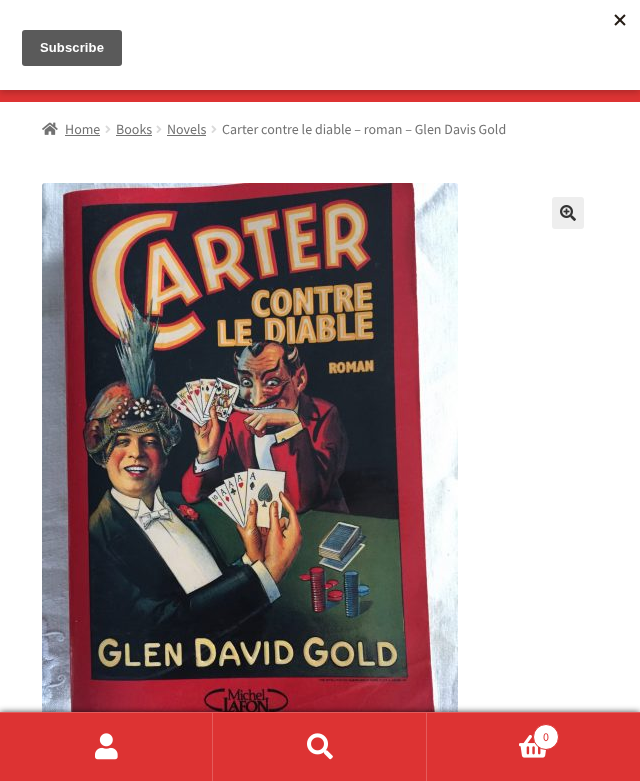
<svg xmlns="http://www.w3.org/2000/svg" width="640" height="781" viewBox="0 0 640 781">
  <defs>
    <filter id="blur1" x="-50%" y="-200%" width="200%" height="500%"><feGaussianBlur stdDeviation="3"/></filter>
  </defs>
  <rect width="100%" height="100%" fill="#ffffff"/>
  <rect x="0" y="90" width="640" height="12" fill="#dd3333"/>
  <rect x="0" y="3" width="640" height="90" fill="#000000" fill-opacity="0.2" filter="url(#blur1)"/>
  <rect x="0" y="0" width="640" height="90" fill="#ffffff"/>
  <image x="22" y="14" width="604" height="52" href="img1.png"/>
  <image x="42" y="122" width="16" height="13" href="img2.png"/>
  <text x="65" y="134" font-family="Source Sans Pro" font-size="14" fill="#727272">Home</text>
  <rect x="65" y="135" width="35" height="1" fill="#727272"/>
  <image x="105" y="125" width="6" height="8" href="img3.png"/>
  <text x="116" y="134" font-family="Source Sans Pro" font-size="14" fill="#727272">Books</text>
  <rect x="116" y="135" width="36" height="1" fill="#727272"/>
  <image x="156" y="125" width="6" height="8" href="img3.png"/>
  <text x="167" y="134" font-family="Source Sans Pro" font-size="14" fill="#727272">Novels</text>
  <rect x="167" y="135" width="39" height="1" fill="#727272"/>
  <image x="211" y="125" width="6" height="8" href="img3.png"/>
  <text x="222" y="134" font-family="Source Sans Pro" font-size="14" fill="#727272">Carter contre le diable – roman – Glen Davis Gold</text>
  <image x="42" y="183" width="416" height="529" href="img4.png"/>
  <rect x="552" y="197" width="32" height="32" rx="3" fill="#eeeeee"/>
  <image x="560" y="205" width="16" height="16" href="img5.png"/>
  <rect x="0" y="712" width="640" height="69" fill="#000000" fill-opacity="0.7" filter="url(#blur1)"/>
  <rect x="0" y="712" width="640" height="1" fill="#e45c5c"/>
  <rect x="0" y="713" width="212" height="68" fill="#dd3333"/>
  <rect x="212" y="713" width="1" height="68" fill="#e45c5c"/>
  <image x="95" y="733" width="23" height="27" href="img6.png"/>
  <rect x="213" y="713" width="213" height="68" fill="#dd3333"/>
  <rect x="426" y="713" width="1" height="68" fill="#e45c5c"/>
  <image x="307" y="733" width="26" height="27" href="img7.png"/>
  <rect x="427" y="713" width="213" height="68" fill="#dd3333"/>
  <image x="519" y="735" width="28" height="23" href="img8.png"/>
  <circle cx="546" cy="737" r="12.5" fill="#ffffff" stroke="#dd3333"/>
  <text x="543" y="741" font-family="Source Sans Pro" font-size="12" fill="#dd3333">0</text>
</svg>
